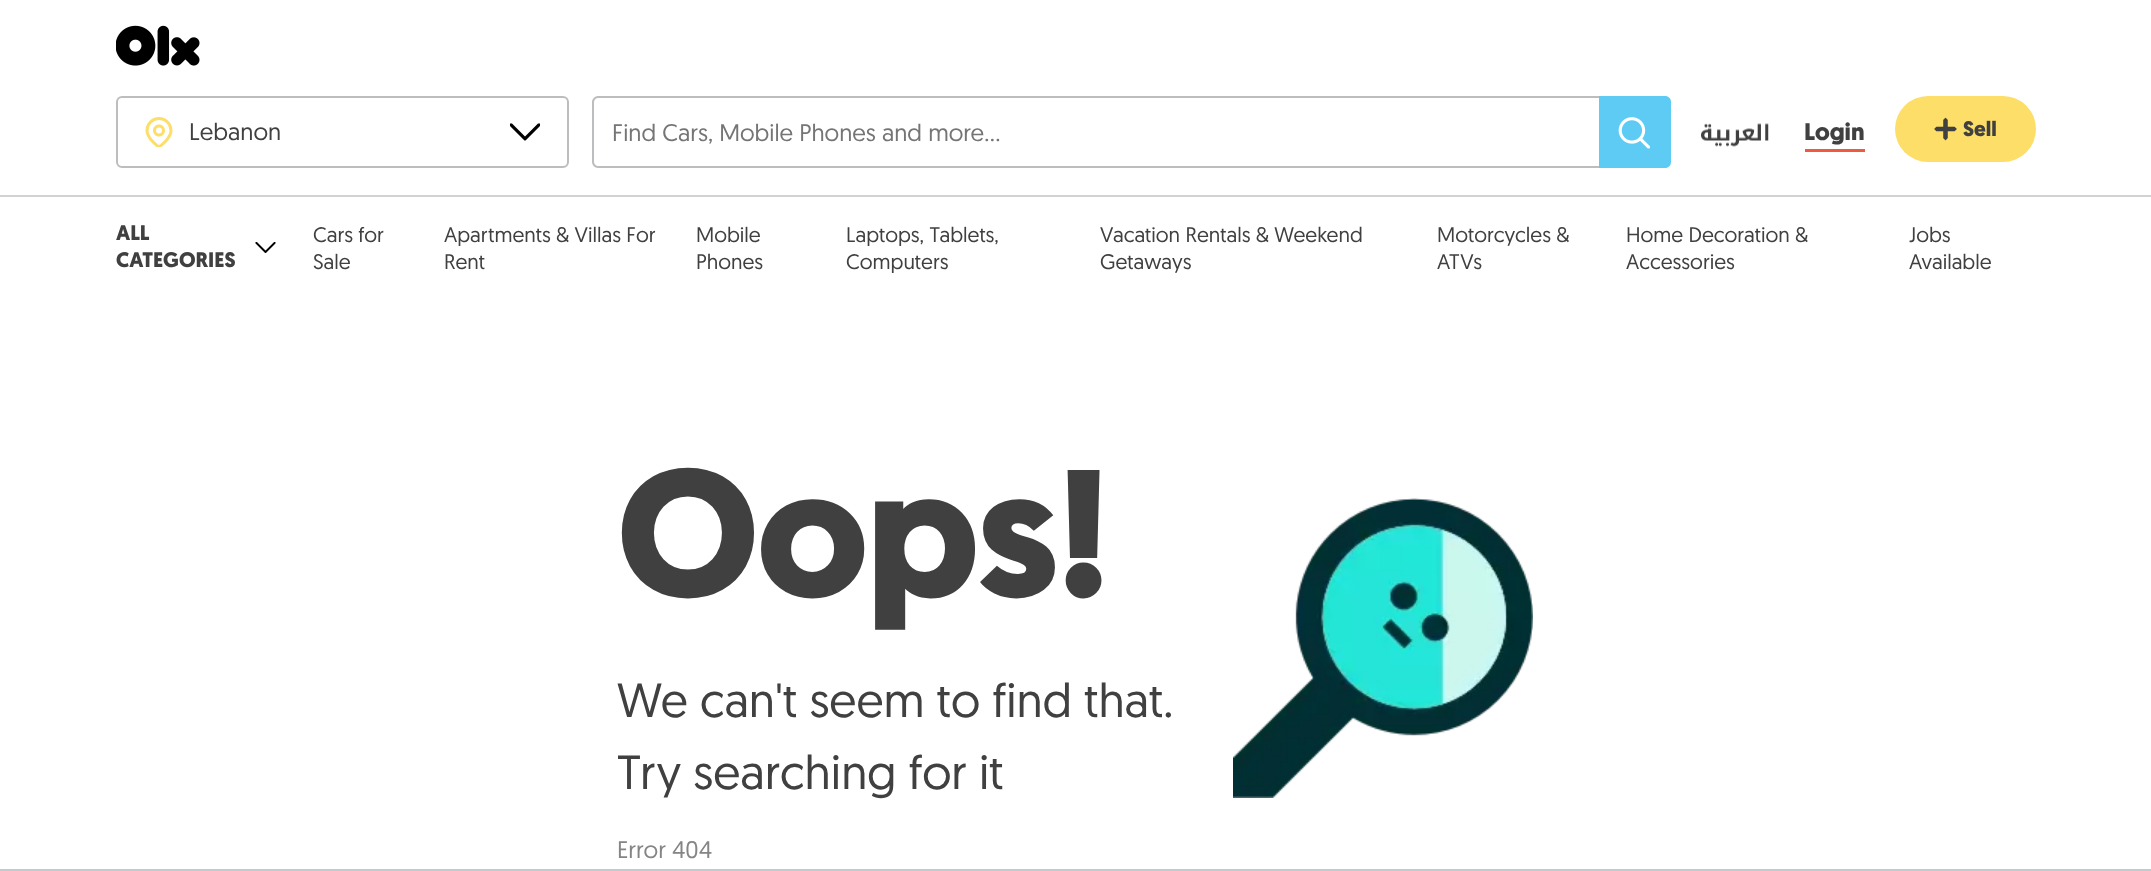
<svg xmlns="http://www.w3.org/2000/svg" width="2151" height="871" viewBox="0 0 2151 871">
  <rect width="100%" height="100%" fill="#ffffff"/>
  <rect x="0" y="195" width="2151" height="2" fill="#d0d2d3"/>
  <image x="116" y="25" width="84" height="41" href="img1.png"/>
  <rect x="117" y="97" width="451" height="70" rx="5" fill="none" stroke="#bbbdbf" stroke-width="2"/>
  <image x="145" y="117" width="28" height="30" href="img2.png"/>
  <text x="189" y="140" font-family="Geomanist" font-size="24" fill="#404041">Lebanon</text>
  <path d="M510 123.5H512L525 136.5L538 123.5H540V126L525.5 140.5H524.5L510 126Z" fill="#000000"/>
  <path d="M598 96H1599V168H598C595 168 592 165 592 162V102C592 99 595 96 598 96ZM598 98H1599V166H598C596 166 594 164 594 162V102C594 100 596 98 598 98Z" fill="#bbbdbf" fill-rule="evenodd"/>
  <text x="612" y="141" font-family="Geomanist" font-size="24" fill="#757575">Find Cars, Mobile Phones and more...</text>
  <path d="M1599 96H1665C1668.5 96 1671 98.5 1671 102V162C1671 165.5 1668.5 168 1665 168H1599Z" fill="#5dcbf4"/>
  <image x="1618" y="117" width="32" height="32" href="img3.png"/>
  <image x="1701" y="123" width="68" height="24" href="img4.png"/>
  <rect x="1805" y="149" width="60" height="3" fill="#ec5b3e"/>
  <text x="1804" y="140" font-family="Geomanist" font-size="24" font-weight="bold" fill="#404041">Login</text>
  <rect x="1895" y="96" width="141" height="66" rx="33" fill="#fcde68"/>
  <image x="1934" y="117" width="23" height="24" href="img5.png"/>
  <text x="1963" y="136" font-family="Geomanist" font-size="21" font-weight="bold" fill="#404041">Sell</text>
  <text x="116" y="240" font-family="Geomanist" font-size="21" font-weight="bold" fill="#404041">ALL</text>
  <image x="255" y="242" width="21" height="11" href="img6.png"/>
  <text x="116" y="267" font-family="Geomanist" font-size="21" font-weight="bold" fill="#404041">CATEGORIES</text>
  <text x="313" y="242" font-family="Geomanist" font-size="21" fill="#404041">Cars for</text>
  <text x="313" y="269" font-family="Geomanist" font-size="21" fill="#404041">Sale</text>
  <text x="444" y="242" font-family="Geomanist" font-size="21" fill="#404041">Apartments &amp; Villas For</text>
  <text x="444" y="269" font-family="Geomanist" font-size="21" fill="#404041">Rent</text>
  <text x="696" y="242" font-family="Geomanist" font-size="21" fill="#404041">Mobile</text>
  <text x="696" y="269" font-family="Geomanist" font-size="21" fill="#404041">Phones</text>
  <text x="846" y="242" font-family="Geomanist" font-size="21" fill="#404041">Laptops, Tablets,</text>
  <text x="846" y="269" font-family="Geomanist" font-size="21" fill="#404041">Computers</text>
  <text x="1100" y="242" font-family="Geomanist" font-size="21" fill="#404041">Vacation Rentals &amp; Weekend</text>
  <text x="1100" y="269" font-family="Geomanist" font-size="21" fill="#404041">Getaways</text>
  <text x="1437" y="242" font-family="Geomanist" font-size="21" fill="#404041">Motorcycles &amp;</text>
  <text x="1437" y="269" font-family="Geomanist" font-size="21" fill="#404041">ATVs</text>
  <text x="1626" y="242" font-family="Geomanist" font-size="21" fill="#404041">Home Decoration &amp;</text>
  <text x="1626" y="269" font-family="Geomanist" font-size="21" fill="#404041">Accessories</text>
  <text x="1909" y="242" font-family="Geomanist" font-size="21" fill="#404041">Jobs</text>
  <text x="1909" y="269" font-family="Geomanist" font-size="21" fill="#404041">Available</text>
  <text x="617" y="596" font-family="Geomanist" font-size="180" font-weight="bold" letter-spacing="-1.5" fill="#404041">Oops!</text>
  <text x="617" y="717" font-family="Geomanist" font-size="47.9" fill="#404041">We can't seem to find that.</text>
  <text x="617" y="789" font-family="Geomanist" font-size="47.9" fill="#404041">Try searching for it</text>
  <text x="617" y="858" font-family="Geomanist" font-size="24" fill="#858585">Error 404</text>
  <image x="1233" y="498" width="300" height="300" href="img7.png"/>
  <rect x="0" y="869" width="2151" height="2" fill="#c1cacc"/>
</svg>
